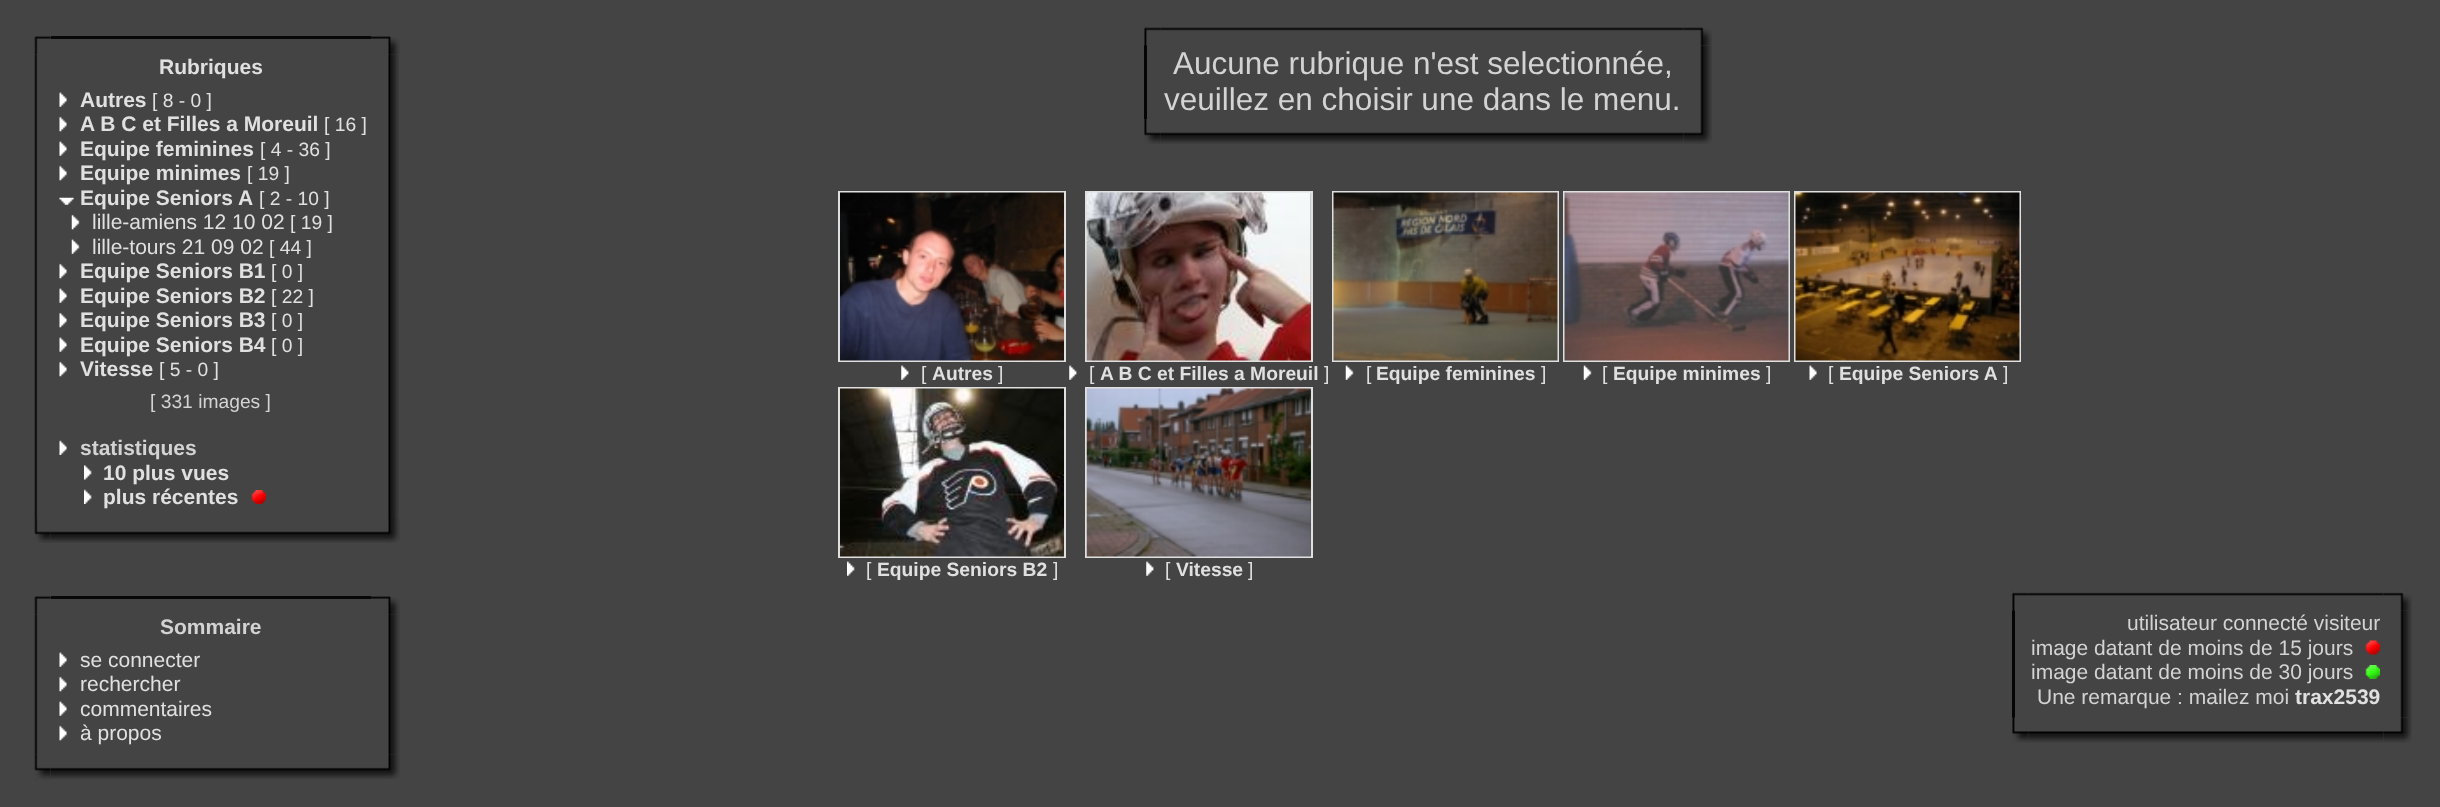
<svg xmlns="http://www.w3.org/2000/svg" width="2440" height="807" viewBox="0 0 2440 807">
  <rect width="100%" height="100%" fill="#444444"/>
  <image x="34" y="36" width="17" height="18" href="img1.png"/>
  <rect x="51" y="36" width="320" height="3" fill="#080808"/>
  <image x="388" y="54" width="11" height="464" href="img13.png"/>
  <image x="371" y="36" width="29" height="19" href="img2.png"/>
  <image x="34" y="54" width="4" height="464" href="img3.png"/>
  <text x="159" y="74" font-family="Liberation Sans" font-size="21" font-weight="bold" fill="#e0e0e0">Rubriques</text>
  <image x="59" y="92" width="8" height="15" href="img4.png"/>
  <text x="80" y="107" font-family="Liberation Sans" font-size="21" font-weight="bold" fill="#e0e0e0">Autres</text>
  <text x="152" y="107" font-family="Liberation Sans" font-size="19.25" fill="#e0e0e0">[ 8 - 0 ]</text>
  <image x="59" y="116" width="8" height="16" href="img5.png"/>
  <text x="80" y="131" font-family="Liberation Sans" font-size="21" font-weight="bold" fill="#e0e0e0">A B C et Filles a Moreuil</text>
  <text x="324" y="131" font-family="Liberation Sans" font-size="19.25" fill="#e0e0e0">[ 16 ]</text>
  <image x="59" y="141" width="8" height="15" href="img4.png"/>
  <text x="80" y="156" font-family="Liberation Sans" font-size="21" font-weight="bold" fill="#e0e0e0">Equipe feminines</text>
  <text x="260" y="156" font-family="Liberation Sans" font-size="19.25" fill="#e0e0e0">[ 4 - 36 ]</text>
  <image x="59" y="165" width="8" height="16" href="img5.png"/>
  <text x="80" y="180" font-family="Liberation Sans" font-size="21" font-weight="bold" fill="#e0e0e0">Equipe minimes</text>
  <text x="247" y="180" font-family="Liberation Sans" font-size="19.25" fill="#e0e0e0">[ 19 ]</text>
  <image x="59" y="197" width="15" height="8" href="img6.png"/>
  <text x="80" y="205" font-family="Liberation Sans" font-size="21" font-weight="bold" fill="#e0e0e0">Equipe Seniors A</text>
  <text x="259" y="205" font-family="Liberation Sans" font-size="19.25" fill="#e0e0e0">[ 2 - 10 ]</text>
  <image x="71" y="214" width="9" height="16" href="img7.png"/>
  <text x="92" y="229" font-family="Liberation Sans" font-size="21" fill="#e0e0e0">lille-amiens 12 10 02</text>
  <text x="290" y="229" font-family="Liberation Sans" font-size="19.25" fill="#e0e0e0">[ 19 ]</text>
  <image x="71" y="239" width="9" height="15" href="img8.png"/>
  <text x="92" y="254" font-family="Liberation Sans" font-size="21" fill="#e0e0e0">lille-tours 21 09 02</text>
  <text x="269" y="254" font-family="Liberation Sans" font-size="19.25" fill="#e0e0e0">[ 44 ]</text>
  <image x="59" y="263" width="8" height="16" href="img5.png"/>
  <text x="80" y="278" font-family="Liberation Sans" font-size="21" font-weight="bold" fill="#e0e0e0">Equipe Seniors B1</text>
  <text x="271" y="278" font-family="Liberation Sans" font-size="19.25" fill="#e0e0e0">[ 0 ]</text>
  <image x="59" y="288" width="8" height="15" href="img4.png"/>
  <text x="80" y="303" font-family="Liberation Sans" font-size="21" font-weight="bold" fill="#e0e0e0">Equipe Seniors B2</text>
  <text x="271" y="303" font-family="Liberation Sans" font-size="19.25" fill="#e0e0e0">[ 22 ]</text>
  <image x="59" y="312" width="8" height="16" href="img5.png"/>
  <text x="80" y="327" font-family="Liberation Sans" font-size="21" font-weight="bold" fill="#e0e0e0">Equipe Seniors B3</text>
  <text x="271" y="327" font-family="Liberation Sans" font-size="19.25" fill="#e0e0e0">[ 0 ]</text>
  <image x="59" y="337" width="8" height="15" href="img4.png"/>
  <text x="80" y="352" font-family="Liberation Sans" font-size="21" font-weight="bold" fill="#e0e0e0">Equipe Seniors B4</text>
  <text x="271" y="352" font-family="Liberation Sans" font-size="19.25" fill="#e0e0e0">[ 0 ]</text>
  <image x="59" y="361" width="8" height="16" href="img5.png"/>
  <text x="80" y="376" font-family="Liberation Sans" font-size="21" font-weight="bold" fill="#e0e0e0">Vitesse</text>
  <text x="159" y="376" font-family="Liberation Sans" font-size="19.25" fill="#e0e0e0">[ 5 - 0 ]</text>
  <text x="150" y="408" font-family="Liberation Sans" font-size="19.25" fill="#d3d3d3">[ 331 images ]</text>
  <image x="59" y="440" width="8" height="15" href="img9.png"/>
  <text x="80" y="455" font-family="Liberation Sans" font-size="21" font-weight="bold" fill="#d3d3d3">statistiques</text>
  <image x="84" y="465" width="8" height="15" href="img10.png"/>
  <text x="103" y="480" font-family="Liberation Sans" font-size="21" font-weight="bold" fill="#e0e0e0">10 plus vues</text>
  <image x="84" y="489" width="8" height="15" href="img11.png"/>
  <text x="103" y="504" font-family="Liberation Sans" font-size="21" font-weight="bold" fill="#e0e0e0">plus récentes</text>
  <image x="251" y="490" width="15" height="14" href="img12.png"/>
  <image x="34" y="518" width="17" height="25" href="img14.png"/>
  <image x="50" y="531" width="321" height="12" href="img15.png"/>
  <image x="371" y="518" width="29" height="25" href="img16.png"/>
  <image x="34" y="596" width="17" height="18" href="img1.png"/>
  <rect x="51" y="596" width="320" height="3" fill="#080808"/>
  <image x="388" y="614" width="12" height="141" href="img19.png"/>
  <image x="371" y="596" width="29" height="19" href="img17.png"/>
  <image x="34" y="614" width="4" height="141" href="img18.png"/>
  <text x="160" y="634" font-family="Liberation Sans" font-size="21" font-weight="bold" fill="#d3d3d3">Sommaire</text>
  <image x="59" y="652" width="8" height="15" href="img4.png"/>
  <text x="80" y="667" font-family="Liberation Sans" font-size="21" fill="#e0e0e0">se connecter</text>
  <image x="59" y="676" width="8" height="16" href="img5.png"/>
  <text x="80" y="691" font-family="Liberation Sans" font-size="21" fill="#e0e0e0">rechercher</text>
  <image x="59" y="701" width="8" height="15" href="img4.png"/>
  <text x="80" y="716" font-family="Liberation Sans" font-size="21" fill="#e0e0e0">commentaires</text>
  <image x="59" y="725" width="8" height="16" href="img5.png"/>
  <text x="80" y="740" font-family="Liberation Sans" font-size="21" fill="#e0e0e0">à propos</text>
  <image x="34" y="754" width="17" height="26" href="img20.png"/>
  <image x="51" y="767" width="320" height="12" href="img21.png"/>
  <image x="371" y="754" width="29" height="25" href="img22.png"/>
  <rect x="1144" y="45" width="3" height="74" fill="#040404"/>
  <image x="1143" y="25" width="18" height="21" href="img23.png"/>
  <image x="1160" y="27" width="524" height="4" href="img24.png"/>
  <image x="1700" y="45" width="12" height="74" href="img26.png"/>
  <image x="1683" y="27" width="29" height="19" href="img25.png"/>
  <text x="1173" y="74" font-family="Liberation Sans" font-size="31.5" fill="#d3d3d3">Aucune rubrique n'est selectionnée,</text>
  <text x="1164" y="110" font-family="Liberation Sans" font-size="31.5" fill="#d3d3d3">veuillez en choisir une dans le menu.</text>
  <image x="1144" y="119" width="17" height="25" href="img27.png"/>
  <image x="1160" y="132" width="524" height="12" href="img28.png"/>
  <image x="1683" y="119" width="29" height="25" href="img29.png"/>
  <rect x="839" y="192" width="226" height="169" fill="none" stroke="#e0e0e0" stroke-width="2"/>
  <image x="840" y="192" width="224" height="169" href="img30.png"/>
  <image x="901" y="365" width="8" height="15" href="img31.png"/>
  <text x="921" y="380" font-family="Liberation Sans" font-size="19.25" fill="#e0e0e0">[</text>
  <text x="932" y="380" font-family="Liberation Sans" font-size="19.25" font-weight="bold" fill="#e0e0e0">Autres</text>
  <text x="998" y="380" font-family="Liberation Sans" font-size="19.25" fill="#e0e0e0">]</text>
  <rect x="1086" y="192" width="226" height="169" fill="none" stroke="#e0e0e0" stroke-width="2"/>
  <image x="1086" y="192" width="225" height="169" href="img32.png"/>
  <image x="1069" y="365" width="8" height="15" href="img33.png"/>
  <text x="1089" y="380" font-family="Liberation Sans" font-size="19.25" fill="#e0e0e0">[</text>
  <text x="1100" y="380" font-family="Liberation Sans" font-size="19.25" font-weight="bold" fill="#e0e0e0">A B C et Filles a Moreuil</text>
  <text x="1324" y="380" font-family="Liberation Sans" font-size="19.25" fill="#e0e0e0">]</text>
  <rect x="1333" y="192" width="225" height="169" fill="none" stroke="#e0e0e0" stroke-width="2"/>
  <image x="1333" y="192" width="225" height="169" href="img34.png"/>
  <image x="1345" y="365" width="9" height="15" href="img35.png"/>
  <text x="1366" y="380" font-family="Liberation Sans" font-size="19.25" fill="#e0e0e0">[</text>
  <text x="1376" y="380" font-family="Liberation Sans" font-size="19.25" font-weight="bold" fill="#e0e0e0">Equipe feminines</text>
  <text x="1541" y="380" font-family="Liberation Sans" font-size="19.25" fill="#e0e0e0">]</text>
  <rect x="1564" y="192" width="225" height="169" fill="none" stroke="#e0e0e0" stroke-width="2"/>
  <image x="1564" y="192" width="225" height="169" href="img36.png"/>
  <image x="1583" y="365" width="9" height="15" href="img35.png"/>
  <text x="1602" y="380" font-family="Liberation Sans" font-size="19.25" fill="#e0e0e0">[</text>
  <text x="1613" y="380" font-family="Liberation Sans" font-size="19.25" font-weight="bold" fill="#e0e0e0">Equipe minimes</text>
  <text x="1766" y="380" font-family="Liberation Sans" font-size="19.25" fill="#e0e0e0">]</text>
  <rect x="1795" y="192" width="225" height="169" fill="none" stroke="#e0e0e0" stroke-width="2"/>
  <image x="1795" y="192" width="225" height="169" href="img37.png"/>
  <image x="1809" y="365" width="8" height="15" href="img4.png"/>
  <text x="1828" y="380" font-family="Liberation Sans" font-size="19.25" fill="#e0e0e0">[</text>
  <text x="1839" y="380" font-family="Liberation Sans" font-size="19.25" font-weight="bold" fill="#e0e0e0">Equipe Seniors A</text>
  <text x="2003" y="380" font-family="Liberation Sans" font-size="19.25" fill="#e0e0e0">]</text>
  <rect x="839" y="388" width="226" height="169" fill="none" stroke="#e0e0e0" stroke-width="2"/>
  <image x="840" y="388" width="224" height="169" href="img38.png"/>
  <image x="847" y="561" width="8" height="15" href="img39.png"/>
  <text x="866" y="576" font-family="Liberation Sans" font-size="19.25" fill="#e0e0e0">[</text>
  <text x="877" y="576" font-family="Liberation Sans" font-size="19.25" font-weight="bold" fill="#e0e0e0">Equipe Seniors B2</text>
  <text x="1053" y="576" font-family="Liberation Sans" font-size="19.25" fill="#e0e0e0">]</text>
  <rect x="1086" y="388" width="226" height="169" fill="none" stroke="#e0e0e0" stroke-width="2"/>
  <image x="1086" y="388" width="225" height="169" href="img40.png"/>
  <image x="1146" y="561" width="8" height="15" href="img31.png"/>
  <text x="1165" y="576" font-family="Liberation Sans" font-size="19.25" fill="#e0e0e0">[</text>
  <text x="1176" y="576" font-family="Liberation Sans" font-size="19.25" font-weight="bold" fill="#e0e0e0">Vitesse</text>
  <text x="1248" y="576" font-family="Liberation Sans" font-size="19.25" fill="#e0e0e0">]</text>
  <rect x="2012" y="610" width="3" height="108" fill="#040404"/>
  <image x="2011" y="590" width="18" height="21" href="img41.png"/>
  <image x="2028" y="592" width="356" height="4" href="img42.png"/>
  <image x="2400" y="610" width="12" height="108" href="img46.png"/>
  <image x="2383" y="590" width="29" height="21" href="img43.png"/>
  <text x="2127" y="630" font-family="Liberation Sans" font-size="21" fill="#d3d3d3">utilisateur connecté visiteur</text>
  <text x="2031" y="655" font-family="Liberation Sans" font-size="21" fill="#d3d3d3">image datant de moins de 15 jours</text>
  <image x="2365" y="640" width="15" height="15" href="img44.png"/>
  <text x="2031" y="679" font-family="Liberation Sans" font-size="21" fill="#d3d3d3">image datant de moins de 30 jours</text>
  <image x="2365" y="665" width="15" height="14" href="img45.png"/>
  <text x="2037" y="704" font-family="Liberation Sans" font-size="21" fill="#d3d3d3">Une remarque : mailez moi</text>
  <text x="2295" y="704" font-family="Liberation Sans" font-size="21" font-weight="bold" fill="#e0e0e0">trax2539</text>
  <image x="2012" y="717" width="17" height="26" href="img47.png"/>
  <image x="2028" y="731" width="356" height="12" href="img48.png"/>
  <image x="2383" y="717" width="29" height="26" href="img49.png"/>
</svg>
